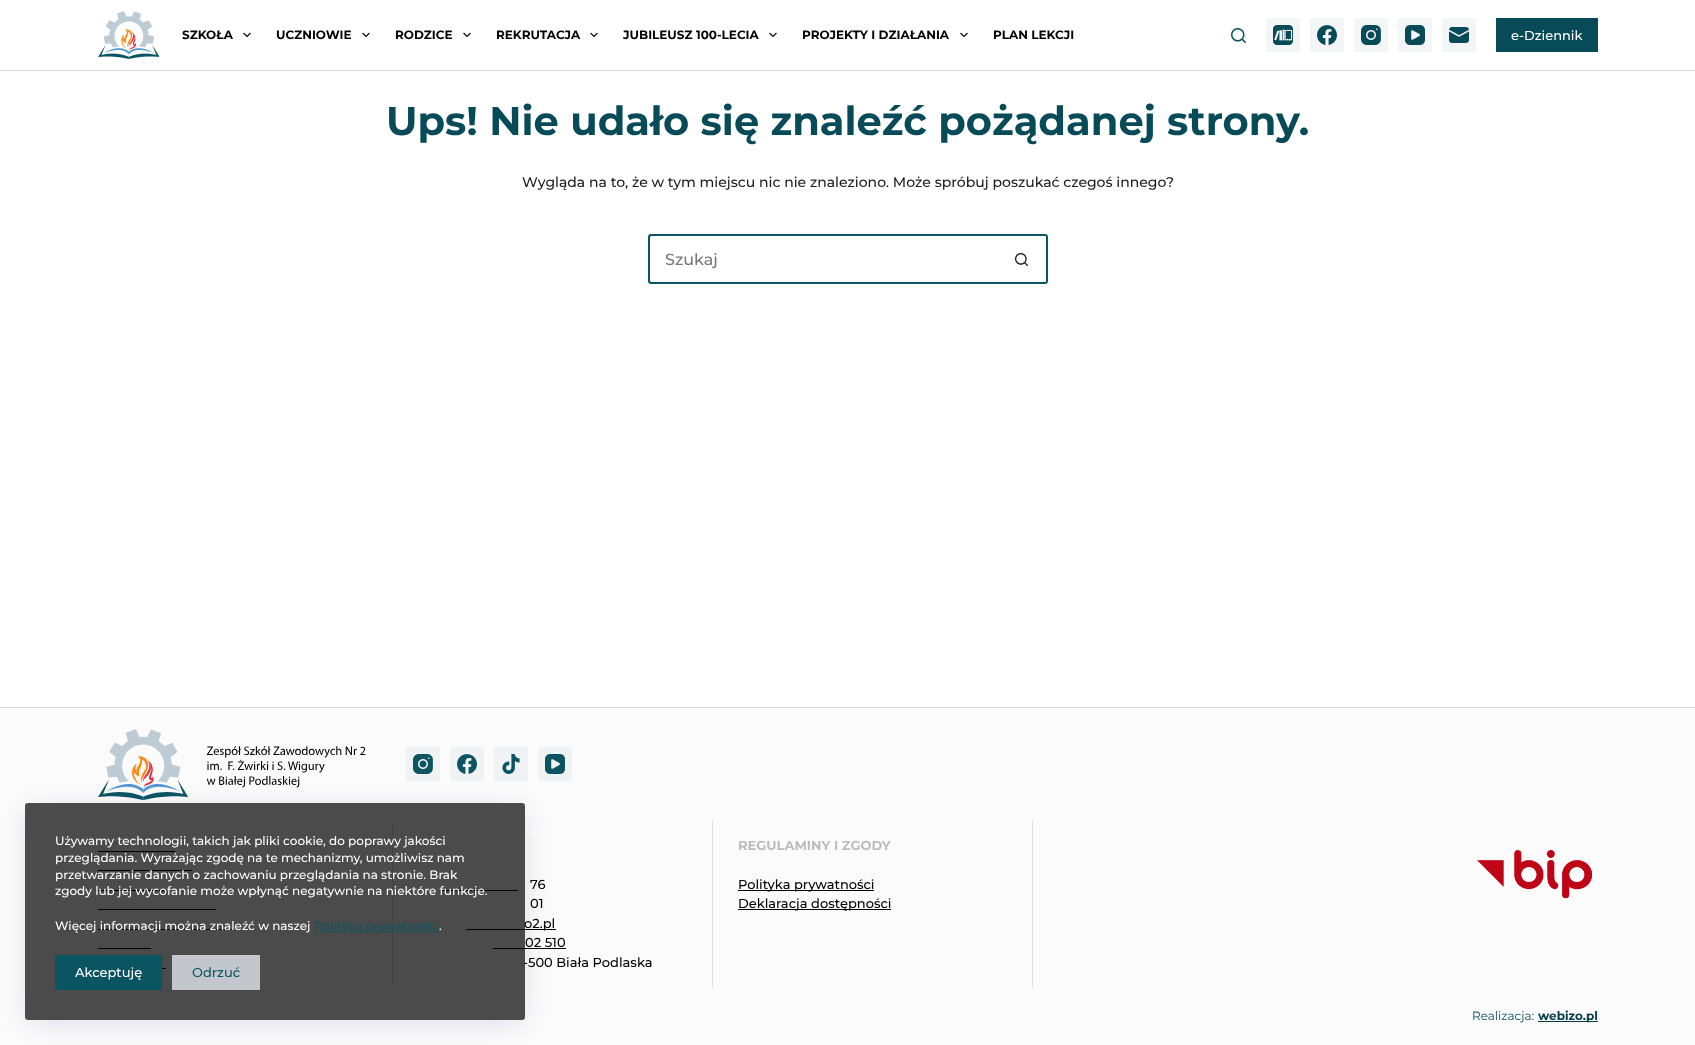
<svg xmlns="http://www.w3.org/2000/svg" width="1695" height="1045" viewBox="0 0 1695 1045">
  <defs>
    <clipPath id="clip1"><path d="M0 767H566V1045H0ZM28 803H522C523.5 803 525 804.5 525 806V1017C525 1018.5 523.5 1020 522 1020H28C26.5 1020 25 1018.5 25 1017V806C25 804.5 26.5 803 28 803Z" clip-rule="evenodd"/></clipPath>
    <filter id="blur1" x="-50%" y="-200%" width="200%" height="500%"><feGaussianBlur stdDeviation="15"/></filter>
  </defs>
  <rect width="100%" height="100%" fill="#ffffff"/>
  <rect x="0" y="70" width="1695" height="1" fill="#d6d8e0"/>
  <image x="98" y="11" width="61" height="48" href="img1.png"/>
  <text x="182" y="39" font-family="Montserrat" font-size="12" font-weight="bold" fill="#000000">SZKOŁA</text>
  <image x="243" y="32" width="8" height="6" href="img2.png"/>
  <text x="276" y="39" font-family="Montserrat" font-size="12" font-weight="bold" fill="#000000">UCZNIOWIE</text>
  <image x="362" y="32" width="8" height="6" href="img2.png"/>
  <text x="395" y="39" font-family="Montserrat" font-size="12" font-weight="bold" fill="#000000">RODZICE</text>
  <image x="463" y="32" width="8" height="6" href="img2.png"/>
  <text x="496" y="39" font-family="Montserrat" font-size="12" font-weight="bold" fill="#000000">REKRUTACJA</text>
  <image x="590" y="32" width="8" height="6" href="img2.png"/>
  <text x="623" y="39" font-family="Montserrat" font-size="12" font-weight="bold" fill="#000000">JUBILEUSZ 100-LECIA</text>
  <image x="769" y="32" width="8" height="6" href="img2.png"/>
  <text x="802" y="39" font-family="Montserrat" font-size="12" font-weight="bold" fill="#000000">PROJEKTY I DZIAŁANIA</text>
  <image x="960" y="32" width="8" height="6" href="img2.png"/>
  <text x="993" y="39" font-family="Montserrat" font-size="12" font-weight="bold" fill="#000000">PLAN LEKCJI</text>
  <image x="1231" y="28" width="15" height="15" href="img3.png"/>
  <rect x="1266" y="18" width="34" height="34" fill="#f4f5f7"/>
  <image x="1273" y="25" width="20" height="20" href="img4.png"/>
  <rect x="1310" y="18" width="34" height="34" fill="#f4f5f7"/>
  <image x="1317" y="25" width="20" height="20" href="img5.png"/>
  <rect x="1354" y="18" width="34" height="34" fill="#f4f5f7"/>
  <image x="1361" y="25" width="20" height="20" href="img6.png"/>
  <rect x="1398" y="18" width="34" height="34" fill="#f4f5f7"/>
  <image x="1405" y="25" width="20" height="20" href="img7.png"/>
  <rect x="1442" y="18" width="34" height="34" fill="#f4f5f7"/>
  <image x="1449" y="27" width="20" height="16" href="img8.png"/>
  <rect x="1496" y="18" width="102" height="34" fill="#084b58"/>
  <text x="1511" y="40" font-family="Montserrat" font-size="13" font-weight="500" fill="#ffffff">e-Dziennik</text>
  <text x="386" y="135" font-family="Montserrat" font-size="40" font-weight="bold" fill="#084b58">Ups! Nie udało się znaleźć pożądanej strony.</text>
  <text x="522" y="187" font-family="Montserrat" font-size="14" font-weight="500" fill="#1c1c1c">Wygląda na to, że w tym miejscu nic nie znaleziono. Może spróbuj poszukać czegoś innego?</text>
  <path d="M651 234H998V284H651C649 284 648 283 648 281V237C648 235 649 234 651 234ZM651 236H998V282H651L650 281V237Z" fill="#0b5563" fill-rule="evenodd"/>
  <text x="665" y="265" font-family="Montserrat" font-size="16" font-weight="500" fill="#777777">Szukaj</text>
  <path d="M998 234H1045C1047 234 1048 235 1048 237V281C1048 283 1047 284 1045 284H998ZM998 236H1045C1046 236 1046 236 1046 237V281C1046 282 1046 282 1045 282H998Z" fill="#0b5563" fill-rule="evenodd"/>
  <image x="1015" y="253" width="13" height="13" href="img9.png"/>
  <rect x="0" y="708" width="1695" height="337" fill="#fbfbfb"/>
  <rect x="0" y="707" width="1695" height="1" fill="#d6d8e0"/>
  <image x="98" y="729" width="268" height="71" href="img10.png"/>
  <rect x="406" y="747" width="34" height="34" fill="#f1f2f4"/>
  <image x="413" y="754" width="20" height="20" href="img11.png"/>
  <rect x="450" y="747" width="34" height="34" fill="#f1f2f4"/>
  <image x="457" y="754" width="20" height="20" href="img12.png"/>
  <rect x="494" y="747" width="34" height="34" fill="#f1f2f4"/>
  <image x="502" y="754" width="18" height="20" href="img13.png"/>
  <rect x="538" y="747" width="34" height="34" fill="#f1f2f4"/>
  <image x="545" y="754" width="20" height="20" href="img14.png"/>
  <rect x="98" y="851" width="77" height="1" fill="#000000"/>
  <rect x="98" y="870" width="94" height="1" fill="#000000"/>
  <rect x="98" y="890" width="67" height="1" fill="#000000"/>
  <rect x="98" y="909" width="118" height="1" fill="#000000"/>
  <rect x="98" y="929" width="134" height="1" fill="#000000"/>
  <rect x="98" y="948" width="53" height="1" fill="#000000"/>
  <rect x="162" y="968" width="4" height="1" fill="#000000"/>
  <rect x="392" y="821" width="1" height="166" fill="#dddddd"/>
  <text x="530" y="889" font-family="Montserrat" font-size="13" font-weight="500" fill="#000000">76</text>
  <rect x="441" y="890" width="77" height="1" fill="#000000"/>
  <text x="530" y="908" font-family="Montserrat" font-size="13" font-weight="500" fill="#000000">01</text>
  <rect x="466" y="929" width="90" height="1" fill="#000000"/>
  <text x="524" y="928" font-family="Montserrat" font-size="13" font-weight="500" fill="#000000">o2.pl</text>
  <text x="525" y="947" font-family="Montserrat" font-size="13" font-weight="500" fill="#000000">02 510</text>
  <rect x="493" y="948" width="73" height="1" fill="#000000"/>
  <text x="523" y="967" font-family="Montserrat" font-size="13" font-weight="500" fill="#000000">-500 Biała Podlaska</text>
  <rect x="712" y="821" width="1" height="166" fill="#dddddd"/>
  <text x="738" y="850" font-family="Montserrat" font-size="13" font-weight="bold" fill="#bdbdbd">REGULAMINY I ZGODY</text>
  <rect x="738" y="890" width="136" height="1" fill="#000000"/>
  <text x="738" y="889" font-family="Montserrat" font-size="13" font-weight="500" fill="#000000">Polityka prywatności</text>
  <rect x="738" y="909" width="153" height="1" fill="#000000"/>
  <text x="738" y="908" font-family="Montserrat" font-size="13" font-weight="500" fill="#000000">Deklaracja dostępności</text>
  <rect x="1032" y="821" width="1" height="166" fill="#dddddd"/>
  <image x="1477" y="850" width="115" height="49" href="img15.png"/>
  <text x="1472" y="1020" font-family="Montserrat" font-size="12" fill="#084b58">Realizacja:</text>
  <rect x="1538" y="1021" width="60" height="1" fill="#033d49"/>
  <text x="1538" y="1020" font-family="Montserrat" font-size="12" font-weight="bold" fill="#033d49">webizo.pl</text>
  <g clip-path="url(#clip1)">
    <rect x="30" y="813" width="490" height="207" fill="#223865" fill-opacity="0.15" filter="url(#blur1)"/>
  </g>
  <rect x="25" y="803" width="500" height="217" rx="3" fill="#000000" fill-opacity="0.7"/>
  <text x="55" y="845" font-family="Montserrat" font-size="12" font-weight="500" fill="#ffffff">Używamy technologii, takich jak pliki cookie, do poprawy jakości</text>
  <text x="55" y="862" font-family="Montserrat" font-size="12" font-weight="500" fill="#ffffff">przeglądania. Wyrażając zgodę na te mechanizmy, umożliwisz nam</text>
  <text x="55" y="879" font-family="Montserrat" font-size="12" font-weight="500" fill="#ffffff">przetwarzanie danych o zachowaniu przeglądania na stronie. Brak</text>
  <text x="55" y="895" font-family="Montserrat" font-size="12" font-weight="500" fill="#ffffff">zgody lub jej wycofanie może wpłynąć negatywnie na niektóre funkcje.</text>
  <text x="55" y="930" font-family="Montserrat" font-size="12" font-weight="500" fill="#ffffff">Więcej informacji można znaleźć w naszej</text>
  <rect x="314" y="931" width="125" height="1" fill="#0b5563"/>
  <text x="314" y="930" font-family="Montserrat" font-size="12" font-weight="500" fill="#0b5563">Polityce prywatności</text>
  <text x="439" y="930" font-family="Montserrat" font-size="12" font-weight="500" fill="#ffffff">.</text>
  <rect x="55" y="955" width="107" height="35" fill="#0b5563"/>
  <text x="75" y="977" font-family="Montserrat" font-size="13" font-weight="500" fill="#ffffff">Akceptuję</text>
  <rect x="172" y="955" width="88" height="35" fill="#c3c7cd"/>
  <text x="192" y="977" font-family="Montserrat" font-size="13" font-weight="500" fill="#0b5563">Odrzuć</text>
</svg>
